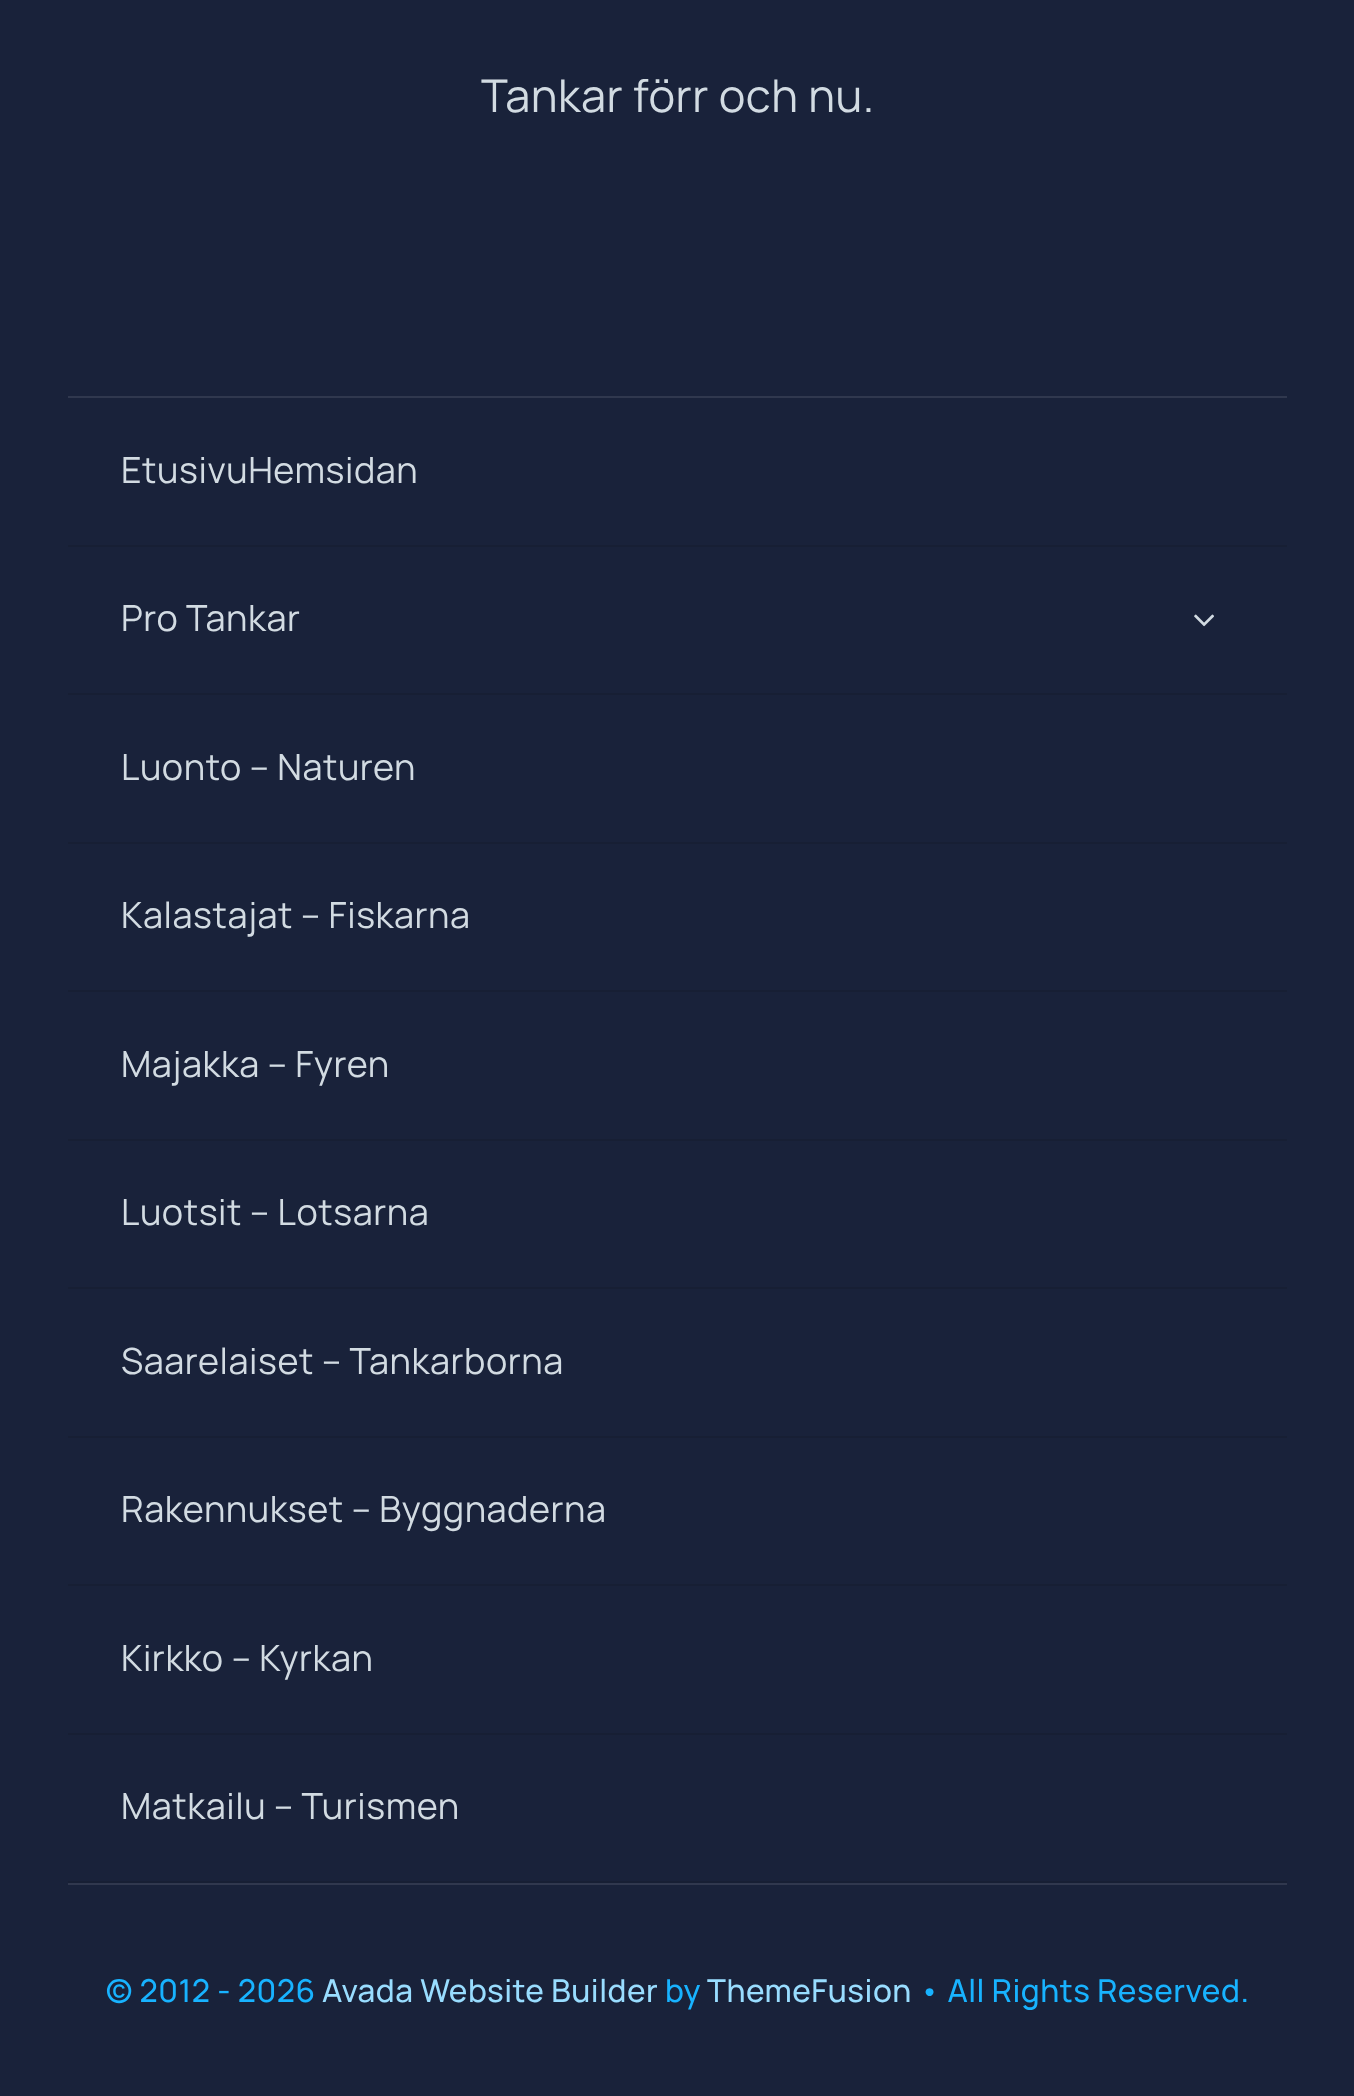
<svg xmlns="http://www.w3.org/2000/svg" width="1354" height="2096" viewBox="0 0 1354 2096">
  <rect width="100%" height="100%" fill="#19223a"/>
  <text x="481" y="112" font-family="Manrope" font-size="45" letter-spacing="0.55" fill="#d2dbe2">Tankar förr och nu.</text>
  <rect x="68" y="396" width="1219" height="2" fill="#30384e"/>
  <rect x="68" y="1883" width="1219" height="2" fill="#30384e"/>
  <rect x="68" y="545" width="1219" height="2" fill="#171f34"/>
  <text x="121" y="483" font-family="Manrope" font-size="36" letter-spacing="0.55" fill="#d2dbe2">EtusivuHemsidan</text>
  <rect x="68" y="693" width="1219" height="2" fill="#171f34"/>
  <text x="121" y="631" font-family="Manrope" font-size="36" letter-spacing="0.55" fill="#d2dbe2">Pro Tankar</text>
  <image x="1194" y="614" width="20" height="13" href="img1.png"/>
  <rect x="68" y="842" width="1219" height="2" fill="#171f34"/>
  <text x="121" y="780" font-family="Manrope" font-size="36" letter-spacing="0.55" fill="#d2dbe2">Luonto – Naturen</text>
  <rect x="68" y="990" width="1219" height="2" fill="#171f34"/>
  <text x="121" y="928" font-family="Manrope" font-size="36" letter-spacing="0.55" fill="#d2dbe2">Kalastajat – Fiskarna</text>
  <rect x="68" y="1139" width="1219" height="2" fill="#171f34"/>
  <text x="121" y="1077" font-family="Manrope" font-size="36" letter-spacing="0.55" fill="#d2dbe2">Majakka – Fyren</text>
  <rect x="68" y="1287" width="1219" height="2" fill="#171f34"/>
  <text x="121" y="1225" font-family="Manrope" font-size="36" letter-spacing="0.55" fill="#d2dbe2">Luotsit – Lotsarna</text>
  <rect x="68" y="1436" width="1219" height="2" fill="#171f34"/>
  <text x="121" y="1374" font-family="Manrope" font-size="36" letter-spacing="0.55" fill="#d2dbe2">Saarelaiset – Tankarborna</text>
  <rect x="68" y="1584" width="1219" height="2" fill="#171f34"/>
  <text x="121" y="1522" font-family="Manrope" font-size="36" letter-spacing="0.55" fill="#d2dbe2">Rakennukset – Byggnaderna</text>
  <rect x="68" y="1733" width="1219" height="2" fill="#171f34"/>
  <text x="121" y="1671" font-family="Manrope" font-size="36" letter-spacing="0.55" fill="#d2dbe2">Kirkko – Kyrkan</text>
  <rect x="68" y="1881" width="1219" height="2" fill="#171f34"/>
  <text x="121" y="1819" font-family="Manrope" font-size="36" letter-spacing="0.55" fill="#d2dbe2">Matkailu – Turismen</text>
  <text x="106" y="2002" font-family="Manrope" font-size="31.5" font-weight="500" letter-spacing="0.5" fill="#18b3ff">© 2012 - 2026</text>
  <text x="322" y="2002" font-family="Manrope" font-size="31.5" font-weight="500" letter-spacing="0.5" fill="#99ddff">Avada Website Builder</text>
  <text x="665" y="2002" font-family="Manrope" font-size="31.5" font-weight="500" letter-spacing="0.5" fill="#18b3ff">by</text>
  <text x="707" y="2002" font-family="Manrope" font-size="31.5" font-weight="500" letter-spacing="0.5" fill="#99ddff">ThemeFusion</text>
  <text x="919" y="2002" font-family="Manrope" font-size="31.5" font-weight="500" letter-spacing="0.5" fill="#18b3ff">• All Rights Reserved.</text>
</svg>
